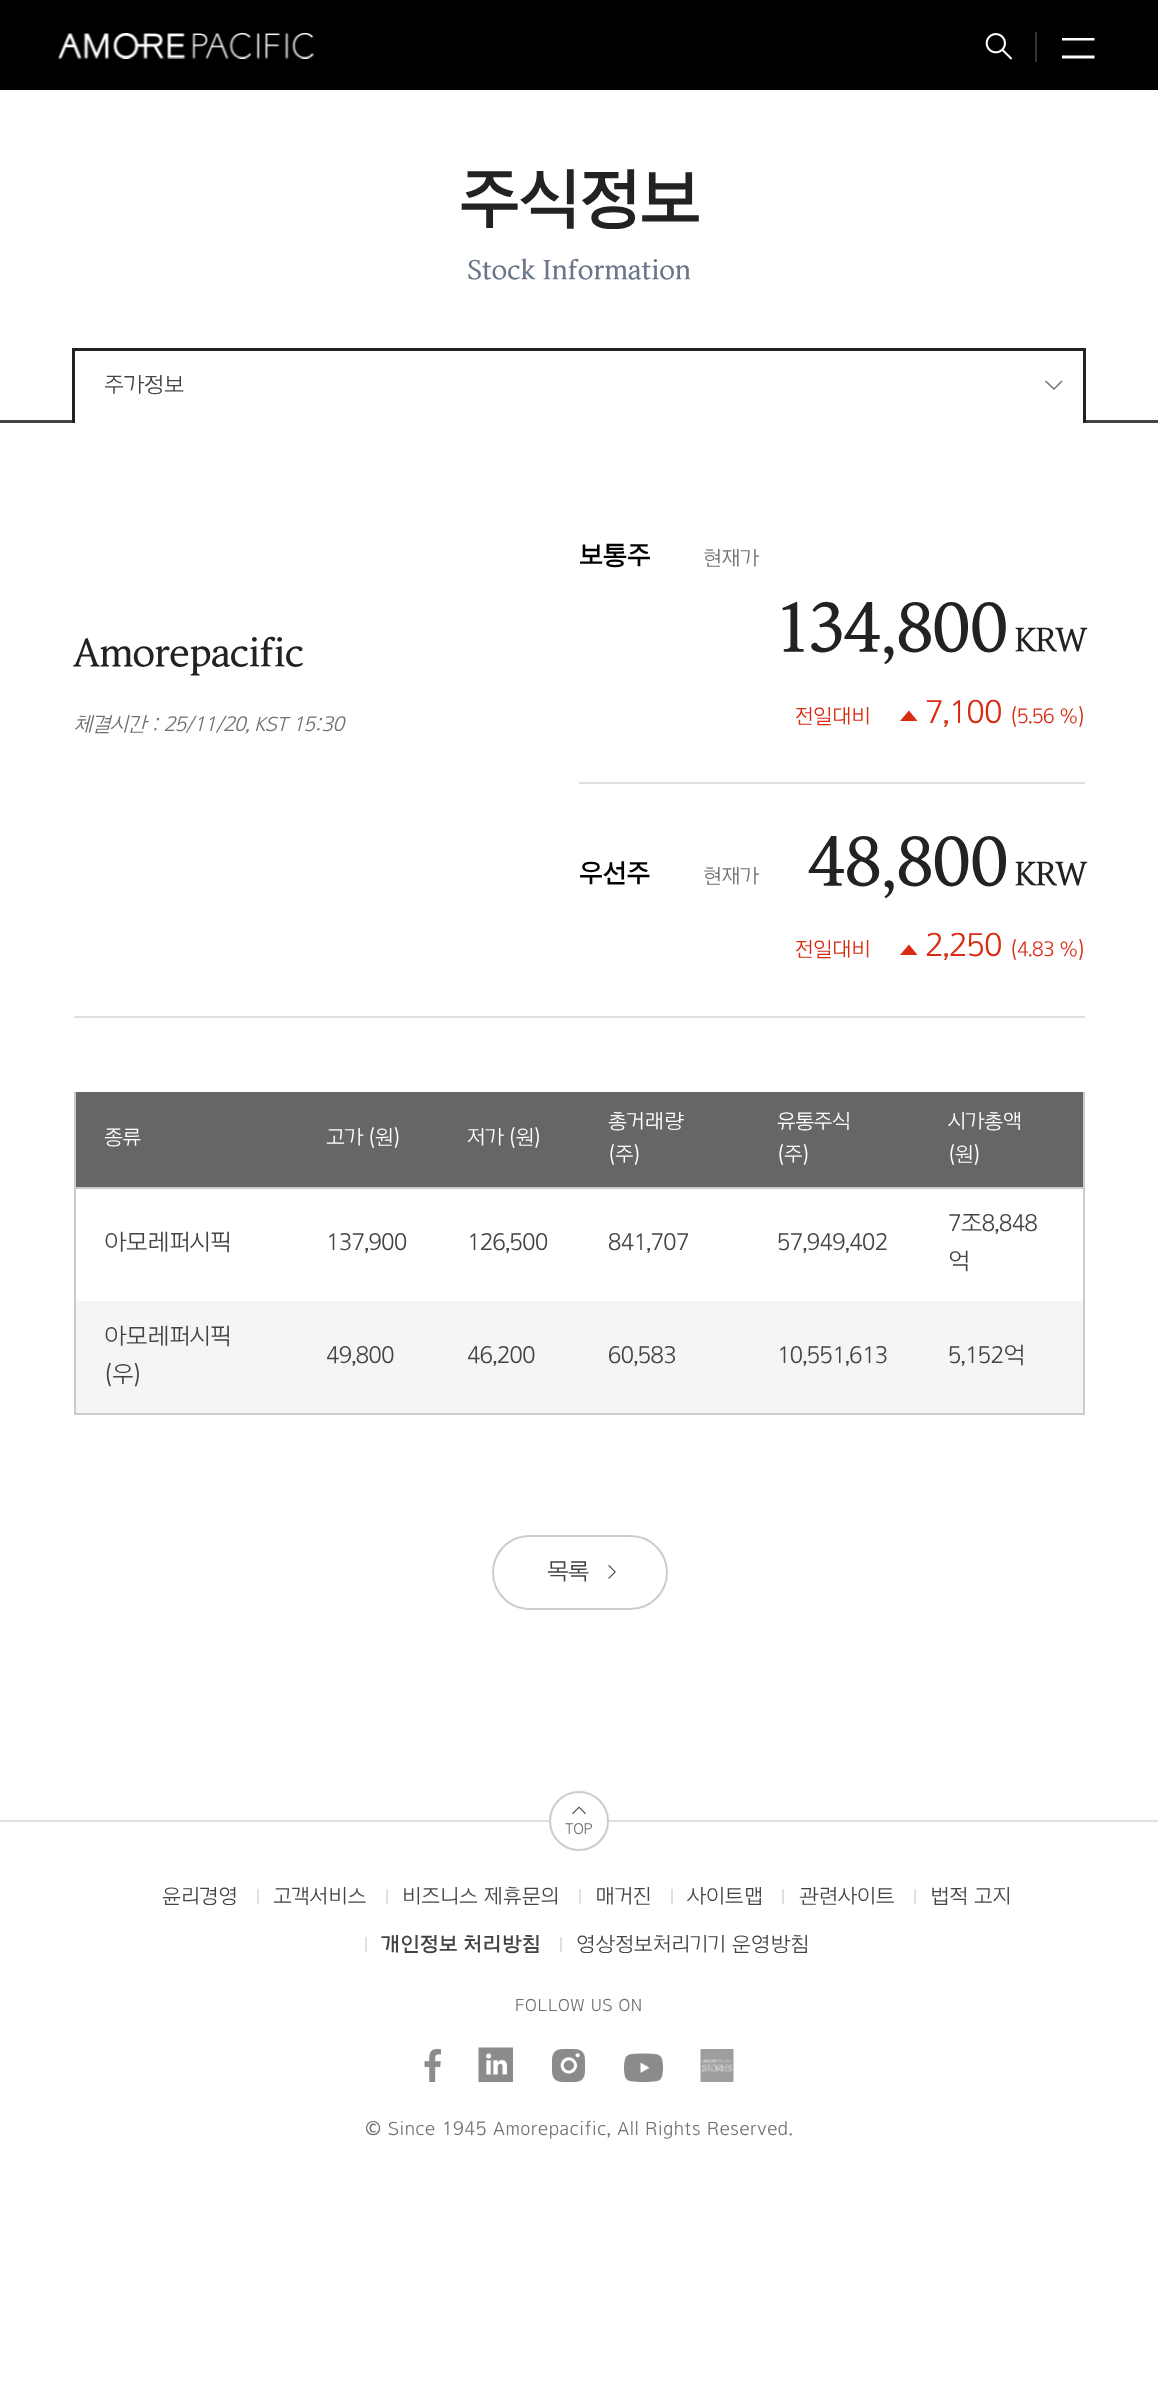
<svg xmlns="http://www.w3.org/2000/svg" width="1158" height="2393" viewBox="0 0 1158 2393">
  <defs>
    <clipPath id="clip1"><rect x="105" y="375" width="918" height="24"/></clipPath>
  </defs>
  <rect width="100%" height="100%" fill="#ffffff"/>
  <rect x="0" y="0" width="1158" height="90" fill="#000000"/>
  <image x="58" y="33" width="256" height="26" href="img1.png"/>
  <image x="985" y="33" width="28" height="27" href="img2.png"/>
  <rect x="1035" y="32" width="2" height="30" fill="#333333"/>
  <path d="M1062 38H1094.5V40.5H1062ZM1062 55.5H1094.5V58.5H1062Z" fill="#ffffff"/>
  <text x="459" y="222" font-family="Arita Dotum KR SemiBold" font-size="69" font-weight="600" letter-spacing="-2" fill="#222222">주식정보</text>
  <text x="467" y="279" font-family="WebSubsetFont" font-size="27" font-weight="600" letter-spacing="-0.45" fill="#687687">Stock Information</text>
  <rect x="0" y="420" width="1158" height="3" fill="#444444"/>
  <rect x="75" y="420" width="1008" height="3" fill="#ffffff"/>
  <rect x="72" y="348" width="1014" height="3" fill="#222222"/>
  <rect x="1083" y="348" width="3" height="75" fill="#222222"/>
  <rect x="72" y="348" width="3" height="75" fill="#222222"/>
  <g clip-path="url(#clip1)">
    <text x="104" y="392" font-family="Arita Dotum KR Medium" font-size="22.5" font-weight="500" fill="#444444">주가정보</text>
  </g>
  <path d="M1054 390L1045 381.5L1046 380.5L1054 388L1061.5 380.5L1062.5 381.5Z" fill="#707070"/>
  <text x="73" y="666" font-family="WebSubsetFont" font-size="39" font-weight="600" letter-spacing="-1.25" fill="#222222">Amorepacific</text>
  <text x="73" y="731" font-family="Arita Dotum KR Medium" font-size="21" font-weight="500" font-style="italic" letter-spacing="-0.45" fill="#707070">체결시간 : 25/11/20, KST 15:30</text>
  <rect x="579" y="782" width="506" height="2" fill="#e0e0e0"/>
  <text x="579" y="564" font-family="Arita Dotum KR SemiBold" font-size="27" font-weight="600" letter-spacing="-0.45" fill="#000000">보통주</text>
  <text x="703" y="565" font-family="Arita Dotum KR Medium" font-size="21" font-weight="500" letter-spacing="-0.45" fill="#707070">현재가</text>
  <text x="776" y="651" font-family="WebSubsetFont" font-size="69" font-weight="600" letter-spacing="-2" fill="#222222">134,800</text>
  <text x="1014" y="651" font-family="WebSubsetFont" font-size="33" font-weight="600" letter-spacing="-2" fill="#222222">KRW</text>
  <text x="795" y="723" font-family="Arita Dotum KR Medium" font-size="21" font-weight="500" letter-spacing="-0.45" fill="#d92c12">전일대비</text>
  <path d="M900 721L909 710.5L917.5 721Z" fill="#d92c12"/>
  <text x="925" y="723" font-family="Arita Dotum KR Medium" font-size="33" font-weight="500" letter-spacing="-0.45" fill="#d92c12">7,100</text>
  <text x="1010" y="723" font-family="Arita Dotum KR Medium" font-size="21" font-weight="500" letter-spacing="-0.45" fill="#d92c12">(5.56 %)</text>
  <rect x="74" y="1016" width="1011" height="2" fill="#e0e0e0"/>
  <text x="579" y="882" font-family="Arita Dotum KR SemiBold" font-size="27" font-weight="600" letter-spacing="-0.45" fill="#000000">우선주</text>
  <text x="703" y="883" font-family="Arita Dotum KR Medium" font-size="21" font-weight="500" letter-spacing="-0.45" fill="#707070">현재가</text>
  <text x="808" y="885" font-family="WebSubsetFont" font-size="69" font-weight="600" letter-spacing="-2" fill="#222222">48,800</text>
  <text x="1014" y="885" font-family="WebSubsetFont" font-size="33" font-weight="600" letter-spacing="-2" fill="#222222">KRW</text>
  <text x="795" y="956" font-family="Arita Dotum KR Medium" font-size="21" font-weight="500" letter-spacing="-0.45" fill="#d92c12">전일대비</text>
  <path d="M900 955L909 944.5L917.5 955Z" fill="#d92c12"/>
  <text x="925" y="956" font-family="Arita Dotum KR Medium" font-size="33" font-weight="500" letter-spacing="-0.45" fill="#d92c12">2,250</text>
  <text x="1010" y="956" font-family="Arita Dotum KR Medium" font-size="21" font-weight="500" letter-spacing="-0.45" fill="#d92c12">(4.83 %)</text>
  <rect x="1083" y="1092" width="2" height="323" fill="#cccccc"/>
  <rect x="74" y="1413" width="1011" height="2" fill="#cccccc"/>
  <rect x="74" y="1092" width="2" height="323" fill="#cccccc"/>
  <rect x="74" y="1187" width="1011" height="2" fill="#cccccc"/>
  <rect x="76" y="1092" width="1007" height="95" fill="#666666"/>
  <text x="104" y="1144" font-family="Arita Dotum KR Medium" font-size="21" font-weight="500" letter-spacing="-0.45" fill="#ffffff">종류</text>
  <text x="326" y="1144" font-family="Arita Dotum KR Medium" font-size="21" font-weight="500" letter-spacing="-0.45" fill="#ffffff">고가 (원)</text>
  <text x="467" y="1144" font-family="Arita Dotum KR Medium" font-size="21" font-weight="500" letter-spacing="-0.45" fill="#ffffff">저가 (원)</text>
  <text x="608" y="1128" font-family="Arita Dotum KR Medium" font-size="21" font-weight="500" letter-spacing="-0.45" fill="#ffffff">총거래량</text>
  <text x="608" y="1161" font-family="Arita Dotum KR Medium" font-size="21" font-weight="500" letter-spacing="-0.45" fill="#ffffff">(주)</text>
  <text x="777" y="1128" font-family="Arita Dotum KR Medium" font-size="21" font-weight="500" letter-spacing="-0.45" fill="#ffffff">유통주식</text>
  <text x="777" y="1161" font-family="Arita Dotum KR Medium" font-size="21" font-weight="500" letter-spacing="-0.45" fill="#ffffff">(주)</text>
  <text x="948" y="1128" font-family="Arita Dotum KR Medium" font-size="21" font-weight="500" letter-spacing="-0.45" fill="#ffffff">시가총액</text>
  <text x="948" y="1161" font-family="Arita Dotum KR Medium" font-size="21" font-weight="500" letter-spacing="-0.45" fill="#ffffff">(원)</text>
  <text x="104" y="1250" font-family="Arita Dotum KR Medium" font-size="24" font-weight="500" letter-spacing="-0.45" fill="#444444">아모레퍼시픽</text>
  <text x="326" y="1250" font-family="Arita Dotum KR Medium" font-size="24" font-weight="500" letter-spacing="-0.45" fill="#444444">137,900</text>
  <text x="467" y="1250" font-family="Arita Dotum KR Medium" font-size="24" font-weight="500" letter-spacing="-0.45" fill="#444444">126,500</text>
  <text x="608" y="1250" font-family="Arita Dotum KR Medium" font-size="24" font-weight="500" letter-spacing="-0.45" fill="#444444">841,707</text>
  <text x="777" y="1250" font-family="Arita Dotum KR Medium" font-size="24" font-weight="500" letter-spacing="-0.45" fill="#444444">57,949,402</text>
  <text x="948" y="1231" font-family="Arita Dotum KR Medium" font-size="24" font-weight="500" letter-spacing="-0.45" fill="#444444">7조8,848</text>
  <text x="948" y="1269" font-family="Arita Dotum KR Medium" font-size="24" font-weight="500" letter-spacing="-0.45" fill="#444444">억</text>
  <rect x="76" y="1301" width="1007" height="112" fill="#f5f5f5"/>
  <text x="104" y="1344" font-family="Arita Dotum KR Medium" font-size="24" font-weight="500" letter-spacing="-0.45" fill="#444444">아모레퍼시픽</text>
  <text x="104" y="1382" font-family="Arita Dotum KR Medium" font-size="24" font-weight="500" letter-spacing="-0.45" fill="#444444">(우)</text>
  <text x="326" y="1363" font-family="Arita Dotum KR Medium" font-size="24" font-weight="500" letter-spacing="-0.45" fill="#444444">49,800</text>
  <text x="467" y="1363" font-family="Arita Dotum KR Medium" font-size="24" font-weight="500" letter-spacing="-0.45" fill="#444444">46,200</text>
  <text x="608" y="1363" font-family="Arita Dotum KR Medium" font-size="24" font-weight="500" letter-spacing="-0.45" fill="#444444">60,583</text>
  <text x="777" y="1363" font-family="Arita Dotum KR Medium" font-size="24" font-weight="500" letter-spacing="-0.45" fill="#444444">10,551,613</text>
  <text x="948" y="1363" font-family="Arita Dotum KR Medium" font-size="24" font-weight="500" letter-spacing="-0.45" fill="#444444">5,152억</text>
  <rect x="493" y="1536" width="174" height="73" rx="36.5" fill="none" stroke="#cccccc" stroke-width="2"/>
  <text x="547" y="1579" font-family="Arita Dotum KR Medium" font-size="24" font-weight="500" letter-spacing="-1" fill="#444444">목록</text>
  <image x="608" y="1565" width="8" height="14" href="img3.png"/>
  <rect x="0" y="1820" width="1158" height="2" fill="#e0e0e0"/>
  <circle cx="579" cy="1821" r="29" fill="#ffffff" stroke="#cccccc" stroke-width="2"/>
  <image x="572" y="1806" width="14" height="9" href="img4.png"/>
  <text x="565" y="1834" font-family="Arita Dotum KR Medium" font-size="16" font-weight="500" fill="#707070">TOP</text>
  <text x="162" y="1903" font-family="Arita Dotum KR Medium" font-size="21" font-weight="500" fill="#444444">윤리경영</text>
  <rect x="257" y="1889" width="2" height="15" fill="#e0e0e0"/>
  <text x="273" y="1903" font-family="Arita Dotum KR Medium" font-size="21" font-weight="500" fill="#444444">고객서비스</text>
  <rect x="386" y="1889" width="2" height="15" fill="#e0e0e0"/>
  <text x="402" y="1903" font-family="Arita Dotum KR Medium" font-size="21" font-weight="500" fill="#444444">비즈니스 제휴문의</text>
  <rect x="579" y="1889" width="2" height="15" fill="#e0e0e0"/>
  <text x="595" y="1903" font-family="Arita Dotum KR Medium" font-size="21" font-weight="500" fill="#444444">매거진</text>
  <rect x="671" y="1889" width="2" height="15" fill="#e0e0e0"/>
  <text x="687" y="1903" font-family="Arita Dotum KR Medium" font-size="21" font-weight="500" fill="#444444">사이트맵</text>
  <rect x="782" y="1889" width="2" height="15" fill="#e0e0e0"/>
  <text x="799" y="1903" font-family="Arita Dotum KR Medium" font-size="21" font-weight="500" fill="#444444">관련사이트</text>
  <rect x="914" y="1889" width="2" height="15" fill="#e0e0e0"/>
  <text x="930" y="1903" font-family="Arita Dotum KR Medium" font-size="21" font-weight="500" fill="#444444">법적 고지</text>
  <rect x="365" y="1937" width="2" height="15" fill="#e0e0e0"/>
  <text x="381" y="1951" font-family="Arita Dotum KR SemiBold" font-size="21" font-weight="600" fill="#444444">개인정보 처리방침</text>
  <rect x="560" y="1937" width="2" height="15" fill="#e0e0e0"/>
  <text x="576" y="1951" font-family="Arita Dotum KR Medium" font-size="21" font-weight="500" fill="#444444">영상정보처리기기 운영방침</text>
  <text x="515" y="2011" font-family="Arita Dotum KR Medium" font-size="17.75" font-weight="500" letter-spacing="0.75" fill="#707070">FOLLOW US ON</text>
  <image x="424" y="2049" width="17" height="33" href="img5.png"/>
  <image x="478" y="2047" width="35" height="35" href="img6.png"/>
  <image x="552" y="2049" width="33" height="33" href="img7.png"/>
  <image x="624" y="2053" width="39" height="29" href="img8.png"/>
  <image x="700" y="2049" width="34" height="33" href="img9.png"/>
  <text x="365" y="2135" font-family="Noto Sans" font-size="19.5" font-weight="600" letter-spacing="0.6" fill="#707070">©</text>
  <text x="388" y="2135" font-family="Arita Dotum KR Medium" font-size="19.5" font-weight="500" letter-spacing="0.6" fill="#707070">Since 1945 Amorepacific, All Rights Reserved.</text>
</svg>
